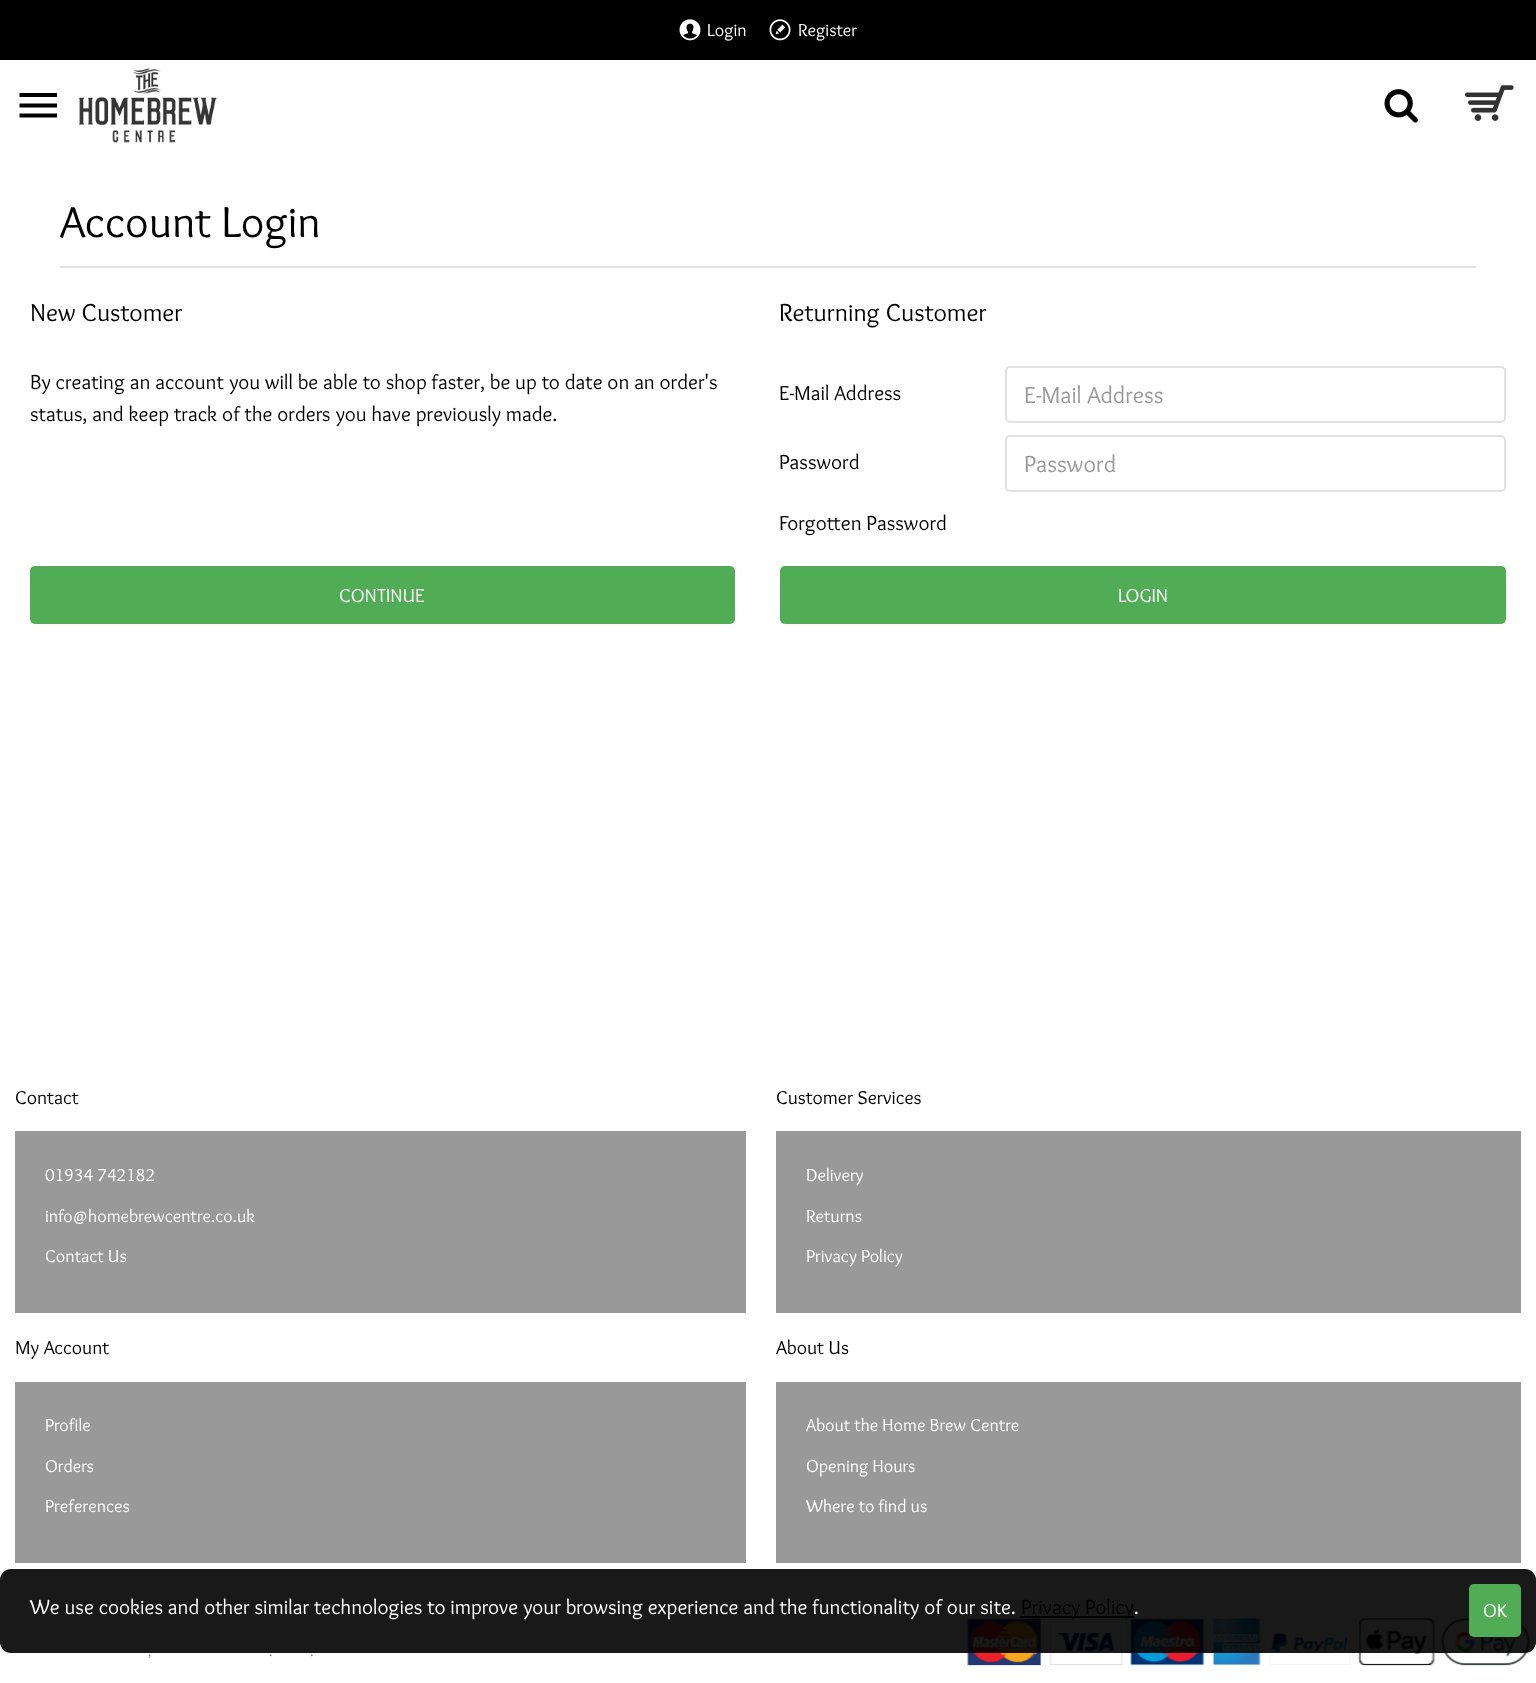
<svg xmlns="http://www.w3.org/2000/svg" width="1536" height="1683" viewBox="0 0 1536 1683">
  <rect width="100%" height="100%" fill="#ffffff"/>
  <rect x="0" y="0" width="1536" height="60" fill="#000000"/>
  <image x="679" y="19" width="22" height="22" href="img1.png"/>
  <text x="707" y="36" font-family="Overlock" font-size="18" fill="#ffffff">Login</text>
  <image x="769" y="19" width="22" height="22" href="img2.png"/>
  <text x="798" y="36" font-family="Overlock" font-size="18" fill="#ffffff">Register</text>
  <image x="78" y="68" width="139" height="75" href="img3.png"/>
  <path d="M19.5 93H57V97H19.5ZM19.5 107.5V103.5H57V107.5ZM19.5 117.5V113.5H57V117.5Z" fill="#000000"/>
  <image x="1384" y="89" width="34" height="34" href="img4.png"/>
  <image x="1464" y="85" width="50" height="36" href="img5.png"/>
  <rect x="60" y="266" width="1416" height="2" fill="#e2e2e2"/>
  <text x="60" y="237" font-family="Overlock" font-size="45" fill="#000000">Account Login</text>
  <text x="30" y="321" font-family="Overlock" font-size="25.5" fill="#000000">New Customer</text>
  <text x="30" y="389" font-family="Overlock" font-size="21" fill="#000000">By creating an account you will be able to shop faster, be up to date on an order's</text>
  <text x="30" y="421" font-family="Overlock" font-size="21" fill="#000000">status, and keep track of the orders you have previously made.</text>
  <rect x="30" y="566" width="705" height="58" rx="5" fill="#50ad55"/>
  <text x="339" y="602" font-family="Overlock" font-size="19.5" fill="#ffffff">CONTINUE</text>
  <text x="779" y="321" font-family="Overlock" font-size="25.5" fill="#000000">Returning Customer</text>
  <text x="779" y="400" font-family="Overlock" font-size="21" fill="#000000">E-Mail Address</text>
  <rect x="1006" y="367" width="499" height="55" rx="4" fill="none" stroke="#e2e2e2" stroke-width="2"/>
  <text x="1024" y="403" font-family="Overlock" font-size="24" fill="#999999">E-Mail Address</text>
  <text x="779" y="469" font-family="Overlock" font-size="21" fill="#000000">Password</text>
  <rect x="1006" y="436" width="499" height="55" rx="4" fill="none" stroke="#e2e2e2" stroke-width="2"/>
  <text x="1024" y="472" font-family="Overlock" font-size="24" fill="#999999">Password</text>
  <text x="779" y="530" font-family="Overlock" font-size="21" fill="#000000">Forgotten Password</text>
  <rect x="780" y="566" width="726" height="58" rx="5" fill="#50ad55"/>
  <text x="1118" y="602" font-family="Overlock" font-size="19.5" fill="#ffffff">LOGIN</text>
  <text x="15" y="1104" font-family="Overlock" font-size="19.5" fill="#000000">Contact</text>
  <rect x="15" y="1131" width="731" height="182" fill="#999999"/>
  <text x="45" y="1181" font-family="Overlock" font-size="18" fill="#ffffff">01934 742182</text>
  <text x="45" y="1222" font-family="Overlock" font-size="18" fill="#ffffff">info@homebrewcentre.co.uk</text>
  <text x="45" y="1262" font-family="Overlock" font-size="18" fill="#ffffff">Contact Us</text>
  <text x="776" y="1104" font-family="Overlock" font-size="19.5" fill="#000000">Customer Services</text>
  <rect x="776" y="1131" width="745" height="182" fill="#999999"/>
  <text x="806" y="1181" font-family="Overlock" font-size="18" fill="#ffffff">Delivery</text>
  <text x="806" y="1222" font-family="Overlock" font-size="18" fill="#ffffff">Returns</text>
  <text x="806" y="1262" font-family="Overlock" font-size="18" fill="#ffffff">Privacy Policy</text>
  <text x="15" y="1354" font-family="Overlock" font-size="19.5" fill="#000000">My Account</text>
  <rect x="15" y="1382" width="731" height="181" fill="#999999"/>
  <text x="45" y="1431" font-family="Overlock" font-size="18" fill="#ffffff">Profile</text>
  <text x="45" y="1472" font-family="Overlock" font-size="18" fill="#ffffff">Orders</text>
  <text x="45" y="1512" font-family="Overlock" font-size="18" fill="#ffffff">Preferences</text>
  <text x="776" y="1354" font-family="Overlock" font-size="19.5" fill="#000000">About Us</text>
  <rect x="776" y="1382" width="745" height="181" fill="#999999"/>
  <text x="806" y="1431" font-family="Overlock" font-size="18" fill="#ffffff">About the Home Brew Centre</text>
  <text x="806" y="1472" font-family="Overlock" font-size="18" fill="#ffffff">Opening Hours</text>
  <text x="806" y="1512" font-family="Overlock" font-size="18" fill="#ffffff">Where to find us</text>
  <text x="148" y="1656" font-family="Overlock" font-size="15" fill="#8b9198">,</text>
  <text x="269" y="1656" font-family="Overlock" font-size="15" fill="#8b9198">.</text>
  <text x="310" y="1656" font-family="Overlock" font-size="15" fill="#8b9198">.</text>
  <image x="967" y="1618" width="563" height="48" href="img6.png"/>
  <rect x="0" y="1569" width="1536" height="84" rx="11" fill="#000000" fill-opacity="0.9"/>
  <text x="30" y="1614" font-family="Overlock" font-size="21" fill="#ffffff">We use cookies and other similar technologies to improve your browsing experience and the functionality of our site.</text>
  <rect x="1020" y="1616" width="114" height="2" fill="#000000"/>
  <text x="1021" y="1614" font-family="Overlock" font-size="21" fill="#000000">Privacy Policy</text>
  <text x="1134" y="1614" font-family="Overlock" font-size="21" fill="#ffffff">.</text>
  <rect x="1469" y="1584" width="52" height="53" rx="5" fill="#50ad55"/>
  <text x="1483" y="1617" font-family="Overlock" font-size="19.5" fill="#ffffff">OK</text>
</svg>
